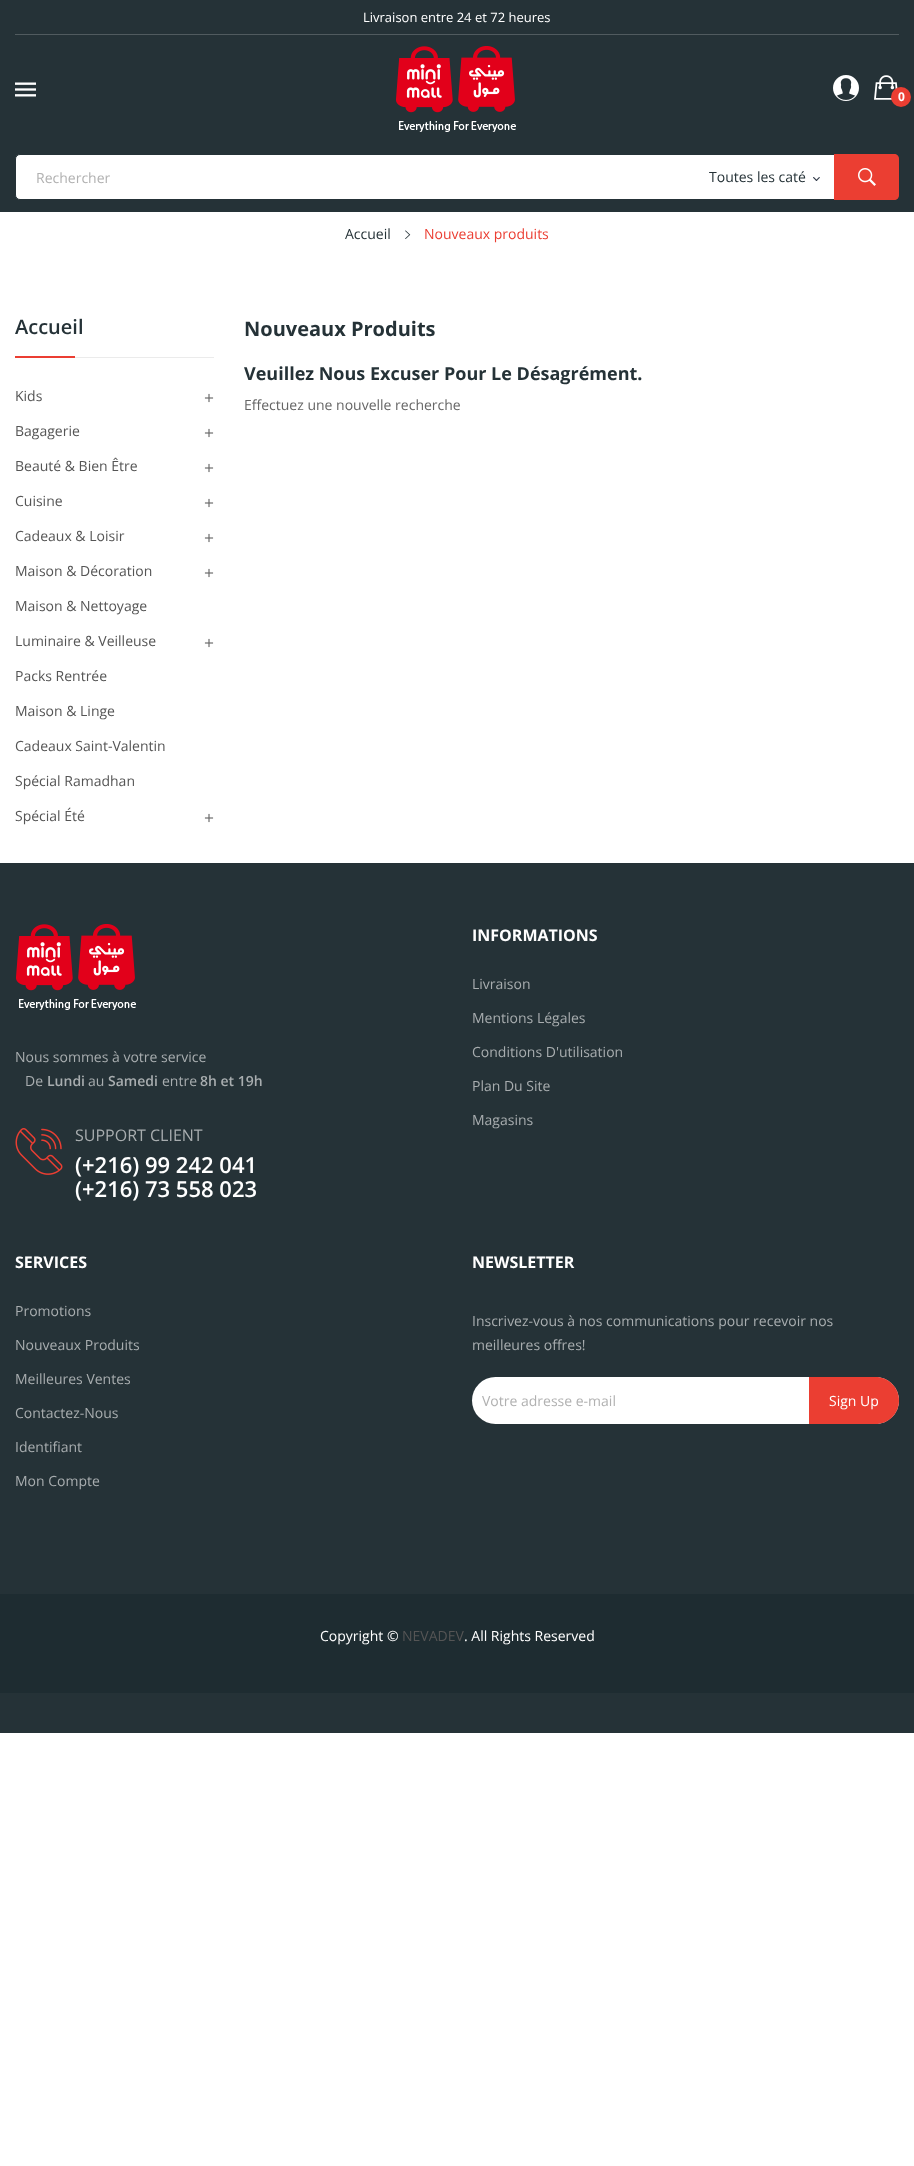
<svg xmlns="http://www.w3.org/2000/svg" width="914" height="2166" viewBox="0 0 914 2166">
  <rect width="100%" height="100%" fill="#ffffff"/>
  <rect x="0" y="0" width="914" height="212" fill="#253237"/>
  <rect x="15" y="34" width="884" height="1" fill="#515b5f"/>
  <text x="363" y="22" font-family="Open Sans" font-size="13" fill="#ffffff">Livraison entre 24 et 72 heures</text>
  <image x="15" y="82" width="21" height="15" href="img1.png"/>
  <image x="396" y="46" width="120" height="86" href="img2.png"/>
  <image x="833" y="75" width="26" height="26" href="img3.png"/>
  <image x="874" y="75" width="24" height="25" href="img4.png"/>
  <circle cx="901" cy="97" r="10" fill="#eb3e32"/>
  <text x="898" y="101" font-family="Open Sans" font-size="12" font-weight="bold" fill="#ffffff">0</text>
  <rect x="15.5" y="154.5" width="883" height="45" rx="4.5" fill="#ffffff" stroke="#253237"/>
  <text x="36" y="183" font-family="Open Sans" font-size="14" fill="#b1b1b1">Rechercher</text>
  <image x="813" y="177" width="7" height="4" href="img5.png"/>
  <text x="709" y="182" font-family="Open Sans" font-size="14" fill="#253237">Toutes les caté</text>
  <path d="M834 154H894C897 154 899 156 899 159V195C899 198 897 200 894 200H834Z" fill="#eb3e32"/>
  <image x="858" y="168" width="18" height="18" href="img6.png"/>
  <text x="345" y="239" font-family="Open Sans" font-size="14" fill="#253237">Accueil</text>
  <image x="405" y="230" width="6" height="9" href="img7.png"/>
  <text x="424" y="239" font-family="Open Sans" font-size="14" fill="#eb3e32">Nouveaux produits</text>
  <rect x="75" y="357" width="139" height="1" fill="#ebebeb"/>
  <text x="15" y="334" font-family="Open Sans" font-size="20" font-weight="600" fill="#253237">Accueil</text>
  <rect x="15" y="356" width="60" height="2" fill="#eb3e32"/>
  <text x="15" y="401" font-family="Open Sans" font-size="14" fill="#555555">Kids</text>
  <image x="204" y="393" width="10" height="10" href="img8.png"/>
  <text x="15" y="436" font-family="Open Sans" font-size="14" fill="#555555">Bagagerie</text>
  <image x="204" y="428" width="10" height="10" href="img8.png"/>
  <text x="15" y="471" font-family="Open Sans" font-size="14" fill="#555555">Beauté &amp; Bien Être</text>
  <image x="204" y="463" width="10" height="10" href="img8.png"/>
  <text x="15" y="506" font-family="Open Sans" font-size="14" fill="#555555">Cuisine</text>
  <image x="204" y="498" width="10" height="10" href="img8.png"/>
  <text x="15" y="541" font-family="Open Sans" font-size="14" fill="#555555">Cadeaux &amp; Loisir</text>
  <image x="204" y="533" width="10" height="10" href="img8.png"/>
  <text x="15" y="576" font-family="Open Sans" font-size="14" fill="#555555">Maison &amp; Décoration</text>
  <image x="204" y="568" width="10" height="10" href="img8.png"/>
  <text x="15" y="611" font-family="Open Sans" font-size="14" fill="#555555">Maison &amp; Nettoyage</text>
  <text x="15" y="646" font-family="Open Sans" font-size="14" fill="#555555">Luminaire &amp; Veilleuse</text>
  <image x="204" y="638" width="10" height="10" href="img8.png"/>
  <text x="15" y="681" font-family="Open Sans" font-size="14" fill="#555555">Packs Rentrée</text>
  <text x="15" y="716" font-family="Open Sans" font-size="14" fill="#555555">Maison &amp; Linge</text>
  <text x="15" y="751" font-family="Open Sans" font-size="14" fill="#555555">Cadeaux Saint-Valentin</text>
  <text x="15" y="786" font-family="Open Sans" font-size="14" fill="#555555">Spécial Ramadhan</text>
  <text x="15" y="821" font-family="Open Sans" font-size="14" fill="#555555">Spécial Été</text>
  <image x="204" y="813" width="10" height="10" href="img8.png"/>
  <text x="244" y="336" font-family="Open Sans" font-size="20" font-weight="bold" fill="#253237">Nouveaux Produits</text>
  <text x="244" y="380" font-family="Open Sans" font-size="18" font-weight="bold" fill="#253237">Veuillez Nous Excuser Pour Le Désagrément.</text>
  <text x="244" y="410" font-family="Open Sans" font-size="14" fill="#666666">Effectuez une nouvelle recherche</text>
  <rect x="0" y="863" width="914" height="870" fill="#253237"/>
  <image x="16" y="924" width="120" height="86" href="img9.png"/>
  <text x="15" y="1062" font-family="Open Sans" font-size="14" fill="#a8adaf">Nous sommes à votre service</text>
  <text x="25" y="1086" font-family="Open Sans" font-size="14" fill="#a8adaf">De</text>
  <text x="47" y="1086" font-family="Open Sans" font-size="14" font-weight="600" fill="#a8adaf">Lundi</text>
  <text x="88" y="1086" font-family="Open Sans" font-size="14" fill="#a8adaf">au</text>
  <text x="108" y="1086" font-family="Open Sans" font-size="14" font-weight="600" fill="#a8adaf">Samedi</text>
  <text x="162" y="1086" font-family="Open Sans" font-size="14" fill="#a8adaf">entre</text>
  <text x="200" y="1086" font-family="Open Sans" font-size="14" font-weight="600" fill="#a8adaf">8h et 19h</text>
  <image x="15" y="1128" width="48" height="47" href="img10.png"/>
  <text x="75" y="1141" font-family="Open Sans" font-size="16" fill="#a8adaf">SUPPORT CLIENT</text>
  <text x="75" y="1173" font-family="Open Sans" font-size="22" font-weight="600" fill="#ffffff">(+216) 99 242 041</text>
  <text x="75" y="1197" font-family="Open Sans" font-size="22" font-weight="600" fill="#ffffff">(+216) 73 558 023</text>
  <text x="472" y="941" font-family="Open Sans" font-size="16" font-weight="bold" fill="#ffffff">INFORMATIONS</text>
  <text x="472" y="989" font-family="Open Sans" font-size="14" fill="#a8adaf">Livraison</text>
  <text x="472" y="1023" font-family="Open Sans" font-size="14" fill="#a8adaf">Mentions Légales</text>
  <text x="472" y="1057" font-family="Open Sans" font-size="14" fill="#a8adaf">Conditions D'utilisation</text>
  <text x="472" y="1091" font-family="Open Sans" font-size="14" fill="#a8adaf">Plan Du Site</text>
  <text x="472" y="1125" font-family="Open Sans" font-size="14" fill="#a8adaf">Magasins</text>
  <text x="15" y="1268" font-family="Open Sans" font-size="16" font-weight="bold" fill="#ffffff">SERVICES</text>
  <text x="15" y="1316" font-family="Open Sans" font-size="14" fill="#a8adaf">Promotions</text>
  <text x="15" y="1350" font-family="Open Sans" font-size="14" fill="#a8adaf">Nouveaux Produits</text>
  <text x="15" y="1384" font-family="Open Sans" font-size="14" fill="#a8adaf">Meilleures Ventes</text>
  <text x="15" y="1418" font-family="Open Sans" font-size="14" fill="#a8adaf">Contactez-Nous</text>
  <text x="15" y="1452" font-family="Open Sans" font-size="14" fill="#a8adaf">Identifiant</text>
  <text x="15" y="1486" font-family="Open Sans" font-size="14" fill="#a8adaf">Mon Compte</text>
  <text x="472" y="1268" font-family="Open Sans" font-size="16" font-weight="bold" fill="#ffffff">NEWSLETTER</text>
  <text x="472" y="1326" font-family="Open Sans" font-size="14" fill="#a8adaf">Inscrivez-vous à nos communications pour recevoir nos</text>
  <text x="472" y="1350" font-family="Open Sans" font-size="14" fill="#a8adaf">meilleures offres!</text>
  <rect x="472" y="1377" width="427" height="47" rx="23.5" fill="#ffffff"/>
  <text x="482" y="1406" font-family="Open Sans" font-size="14" fill="#b1b1b1">Votre adresse e-mail</text>
  <path d="M809 1377H875.5C888.5 1377 899 1387.5 899 1400.5C899 1413.5 888.5 1424 875.5 1424H809Z" fill="#eb3e32"/>
  <text x="829" y="1406" font-family="Open Sans" font-size="14" fill="#ffffff">Sign Up</text>
  <rect x="0" y="1594" width="914" height="99" fill="#1e2c31"/>
  <text x="320" y="1641" font-family="Open Sans" font-size="14" fill="#ffffff">Copyright ©</text>
  <text x="402" y="1641" font-family="Open Sans" font-size="14" fill="#555555">NEVADEV</text>
  <text x="464" y="1641" font-family="Open Sans" font-size="14" fill="#ffffff">. All Rights Reserved</text>
</svg>
